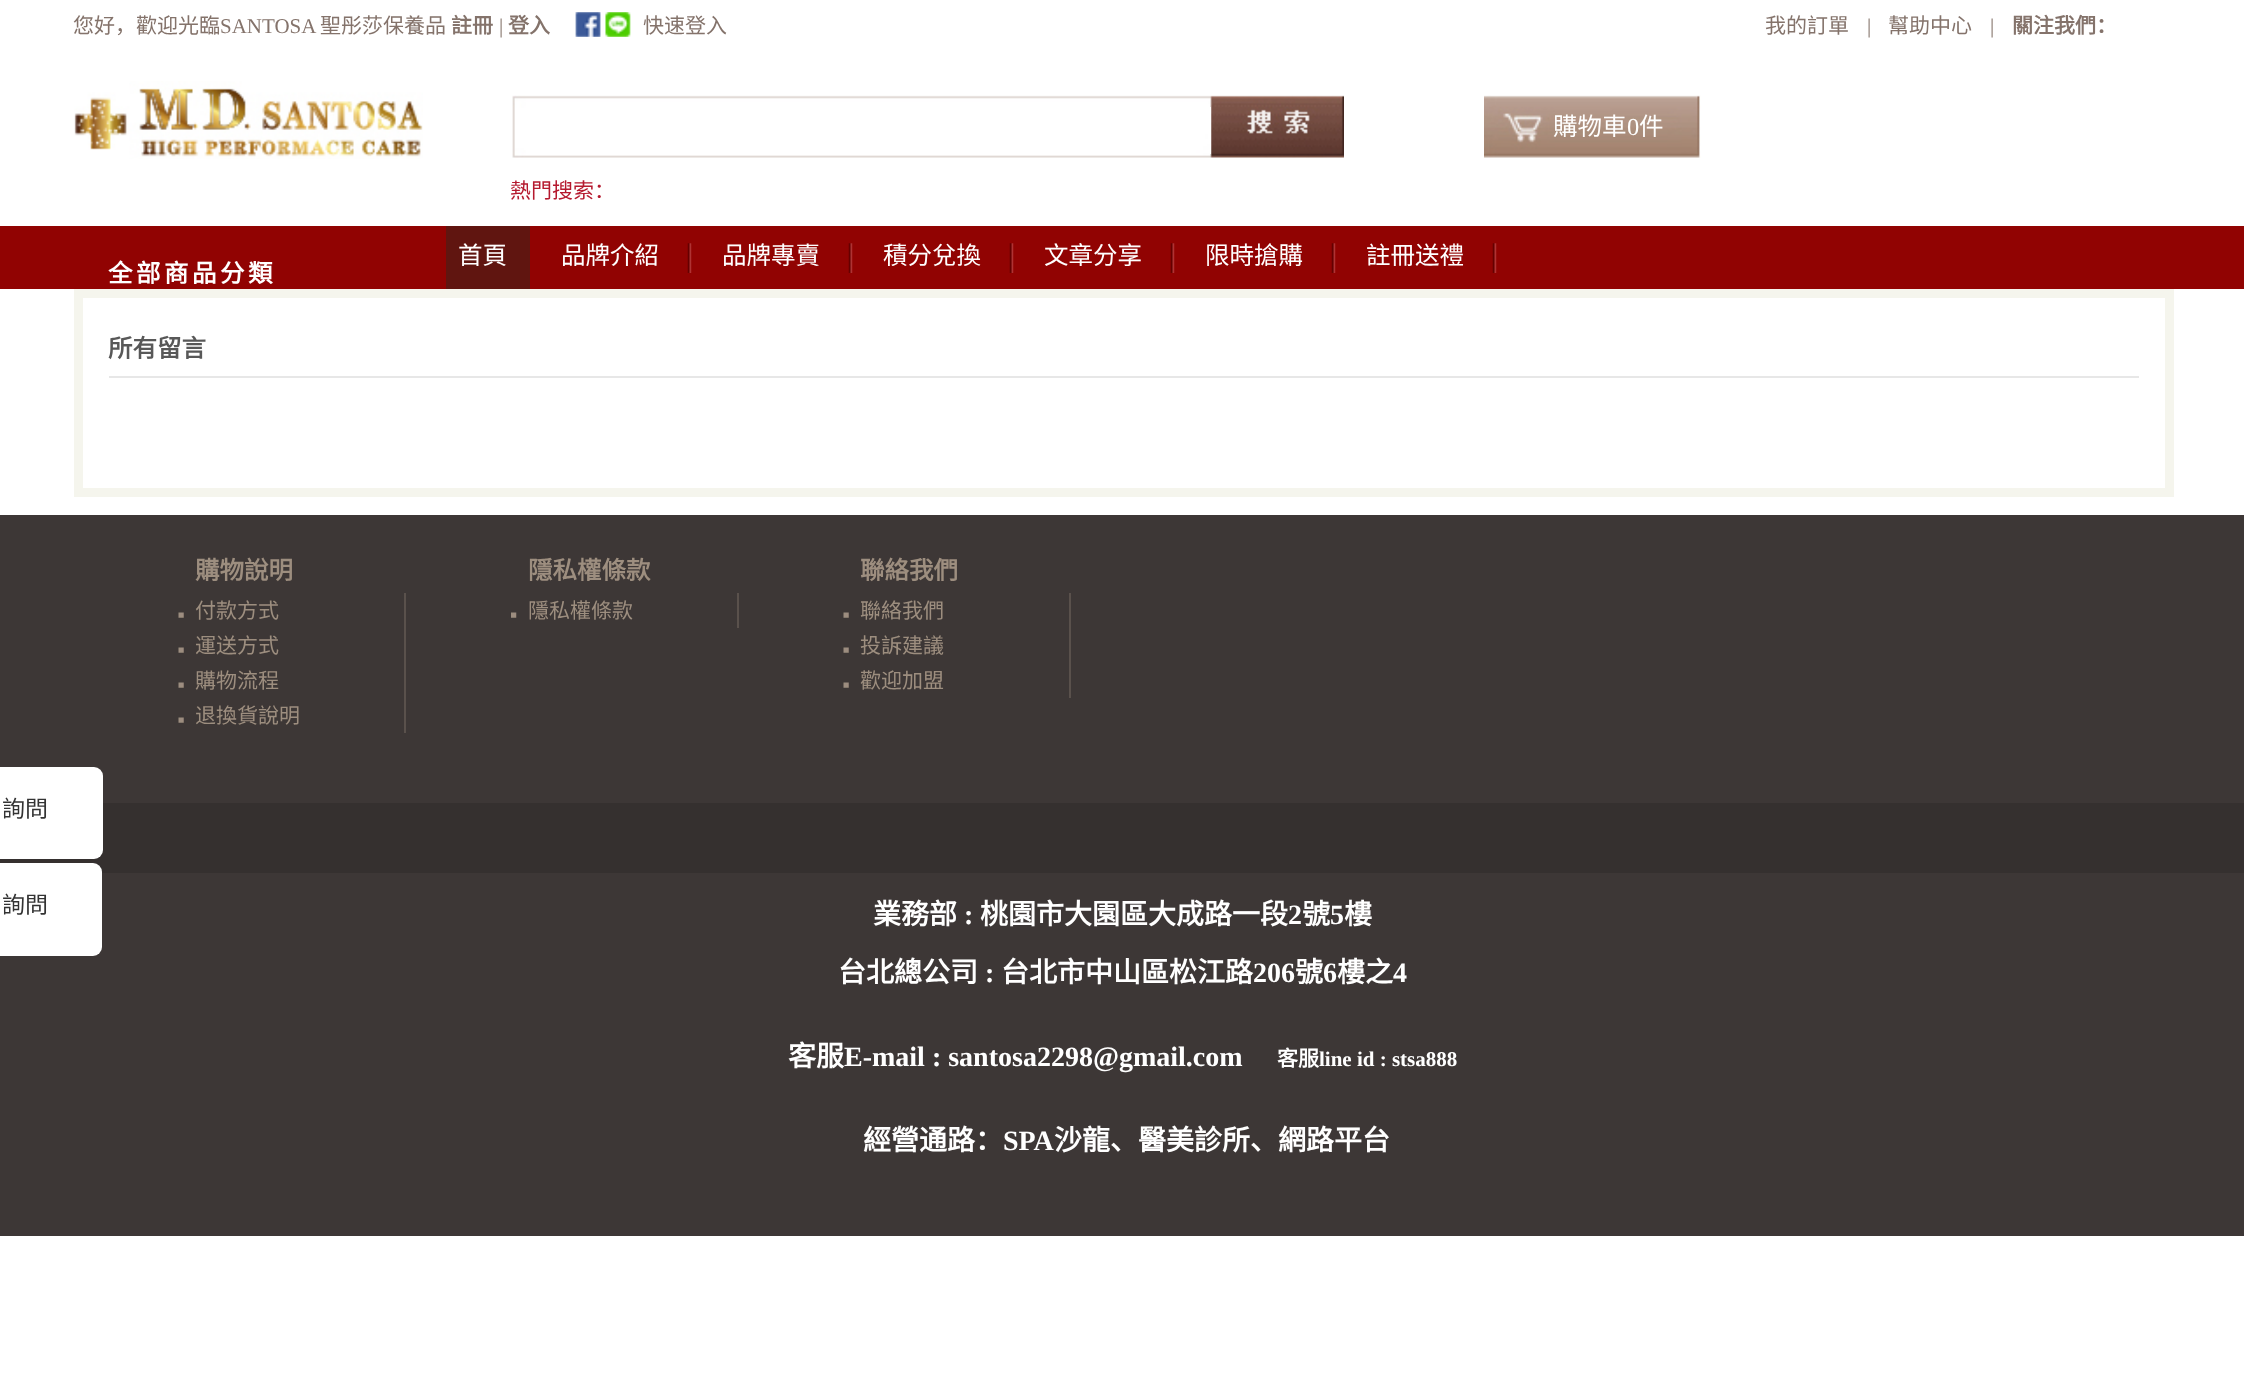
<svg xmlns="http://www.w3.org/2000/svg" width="2244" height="1384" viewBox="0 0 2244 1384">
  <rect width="100%" height="100%" fill="#ffffff"/>
  <text x="73" y="33" font-family="Noto Sans CJK SC" font-size="21" fill="#84736b">您好，歡迎光臨</text>
  <text x="220" y="33" font-family="Liberation Serif" font-size="21" fill="#84736b">SANTOSA</text>
  <text x="320" y="33" font-family="Noto Sans CJK SC" font-size="21" fill="#84736b">聖彤莎保養品</text>
  <text x="451" y="33" font-family="Noto Sans CJK SC" font-size="21" font-weight="bold" fill="#84736b">註冊</text>
  <text x="499" y="33" font-family="Liberation Serif" font-size="21" fill="#84736b">|</text>
  <text x="508" y="33" font-family="Noto Sans CJK SC" font-size="21" font-weight="bold" fill="#84736b">登入</text>
  <image x="575" y="12" width="56" height="25" href="img1.png"/>
  <text x="643" y="33" font-family="Noto Sans CJK SC" font-size="21" fill="#84736b">快速登入</text>
  <text x="1765" y="33" font-family="Noto Sans CJK SC" font-size="21" fill="#84736b">我的訂單</text>
  <text x="1867" y="33" font-family="Liberation Serif" font-size="21" fill="#84736b">|</text>
  <text x="1888" y="33" font-family="Noto Sans CJK SC" font-size="21" fill="#84736b">幫助中心</text>
  <text x="1990" y="33" font-family="Liberation Serif" font-size="21" fill="#84736b">|</text>
  <text x="2012" y="33" font-family="Noto Sans CJK SC" font-size="21" font-weight="bold" fill="#84736b">關注我們：</text>
  <image x="74" y="81" width="349" height="78" href="img2.png"/>
  <image x="1484" y="95" width="217" height="63" href="img3.png"/>
  <text x="1553" y="135" font-family="Noto Sans CJK SC" font-size="24.5" fill="#ffffff">購物車</text>
  <text x="1627" y="135" font-family="Liberation Serif" font-size="24.5" fill="#ffffff">0</text>
  <text x="1639" y="135" font-family="Noto Sans CJK SC" font-size="24.5" fill="#ffffff">件</text>
  <image x="512" y="95" width="832" height="63" href="img4.png"/>
  <rect x="1210" y="107" width="1" height="47" fill="#ffffff"/>
  <text x="510" y="198" font-family="Noto Sans CJK SC" font-size="21" fill="#b5192e">熱門搜索：</text>
  <rect x="0" y="226" width="2244" height="63" fill="#910302"/>
  <rect x="446" y="226" width="84" height="63" fill="#601510"/>
  <text x="458" y="264" font-family="Noto Sans CJK SC" font-size="24.5" fill="#ffffff">首頁</text>
  <image x="687" y="243" width="5" height="30" href="img5.png"/>
  <text x="561" y="264" font-family="Noto Sans CJK SC" font-size="24.5" fill="#ffffff">品牌介紹</text>
  <image x="848" y="243" width="5" height="30" href="img5.png"/>
  <text x="722" y="264" font-family="Noto Sans CJK SC" font-size="24.5" fill="#ffffff">品牌專賣</text>
  <image x="1009" y="243" width="5" height="30" href="img6.png"/>
  <text x="883" y="264" font-family="Noto Sans CJK SC" font-size="24.5" fill="#ffffff">積分兌換</text>
  <image x="1170" y="243" width="5" height="30" href="img5.png"/>
  <text x="1044" y="264" font-family="Noto Sans CJK SC" font-size="24.5" fill="#ffffff">文章分享</text>
  <image x="1331" y="243" width="5" height="30" href="img6.png"/>
  <text x="1205" y="264" font-family="Noto Sans CJK SC" font-size="24.5" fill="#ffffff">限時搶購</text>
  <image x="1492" y="243" width="5" height="30" href="img5.png"/>
  <text x="1366" y="264" font-family="Noto Sans CJK SC" font-size="24.5" fill="#ffffff">註冊送禮</text>
  <text x="108" y="282" font-family="Noto Sans CJK SC" font-size="24.5" font-weight="bold" letter-spacing="3.5" fill="#ffffff">全部商品分類</text>
  <rect x="78.5" y="293.5" width="2091" height="199" fill="none" stroke="#f5f5ed" stroke-width="9"/>
  <rect x="109" y="376" width="2030" height="2" fill="#e7e7e7"/>
  <text x="108" y="357" font-family="Noto Sans CJK SC" font-size="24.5" font-weight="bold" fill="#585858">所有留言</text>
  <rect x="0" y="515" width="2244" height="721" fill="#3d3736"/>
  <rect x="0" y="803" width="2244" height="70" fill="#35302f"/>
  <rect x="-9" y="767" width="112" height="92" rx="9" fill="#ffffff"/>
  <text x="2" y="817" font-family="Noto Sans CJK SC" font-size="23" fill="#333333">詢問</text>
  <rect x="-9" y="863" width="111" height="93" rx="9" fill="#ffffff"/>
  <text x="2" y="913" font-family="Noto Sans CJK SC" font-size="23" fill="#333333">詢問</text>
  <text x="195" y="579" font-family="Noto Sans CJK SC" font-size="24.5" font-weight="bold" fill="#9d8e7f">購物說明</text>
  <rect x="404" y="593" width="2" height="140" fill="#5a514c"/>
  <image x="178" y="612" width="6" height="6" href="img7.png"/>
  <text x="195" y="618" font-family="Noto Sans CJK SC" font-size="21" fill="#9d8e7f">付款方式</text>
  <image x="178" y="647" width="6" height="6" href="img7.png"/>
  <text x="195" y="653" font-family="Noto Sans CJK SC" font-size="21" fill="#9d8e7f">運送方式</text>
  <image x="178" y="682" width="6" height="6" href="img7.png"/>
  <text x="195" y="688" font-family="Noto Sans CJK SC" font-size="21" fill="#9d8e7f">購物流程</text>
  <image x="178" y="717" width="6" height="6" href="img7.png"/>
  <text x="195" y="723" font-family="Noto Sans CJK SC" font-size="21" fill="#9d8e7f">退換貨說明</text>
  <text x="528" y="579" font-family="Noto Sans CJK SC" font-size="24.5" font-weight="bold" fill="#9d8e7f">隱私權條款</text>
  <rect x="737" y="593" width="2" height="35" fill="#5a514c"/>
  <image x="511" y="612" width="6" height="6" href="img8.png"/>
  <text x="528" y="618" font-family="Noto Sans CJK SC" font-size="21" fill="#9d8e7f">隱私權條款</text>
  <text x="860" y="579" font-family="Noto Sans CJK SC" font-size="24.5" font-weight="bold" fill="#9d8e7f">聯絡我們</text>
  <rect x="1069" y="593" width="2" height="105" fill="#5a514c"/>
  <image x="843" y="612" width="6" height="6" href="img7.png"/>
  <text x="860" y="618" font-family="Noto Sans CJK SC" font-size="21" fill="#9d8e7f">聯絡我們</text>
  <image x="843" y="647" width="6" height="6" href="img7.png"/>
  <text x="860" y="653" font-family="Noto Sans CJK SC" font-size="21" fill="#9d8e7f">投訴建議</text>
  <image x="843" y="682" width="6" height="6" href="img7.png"/>
  <text x="860" y="688" font-family="Noto Sans CJK SC" font-size="21" fill="#9d8e7f">歡迎加盟</text>
  <text x="873" y="924" font-family="Noto Sans CJK SC" font-size="28" font-weight="bold" fill="#ffffff">業務部</text>
  <text x="964" y="924" font-family="Liberation Serif" font-size="28" font-weight="bold" fill="#ffffff">:</text>
  <text x="980" y="924" font-family="Noto Sans CJK SC" font-size="28" font-weight="bold" fill="#ffffff">桃園市大園區大成路一段</text>
  <text x="1288" y="924" font-family="Liberation Serif" font-size="28" font-weight="bold" fill="#ffffff">2</text>
  <text x="1302" y="924" font-family="Noto Sans CJK SC" font-size="28" font-weight="bold" fill="#ffffff">號</text>
  <text x="1330" y="924" font-family="Liberation Serif" font-size="28" font-weight="bold" fill="#ffffff">5</text>
  <text x="1344" y="924" font-family="Noto Sans CJK SC" font-size="28" font-weight="bold" fill="#ffffff">樓</text>
  <text x="838" y="982" font-family="Noto Sans CJK SC" font-size="28" font-weight="bold" fill="#ffffff">台北總公司</text>
  <text x="985" y="982" font-family="Liberation Serif" font-size="28" font-weight="bold" fill="#ffffff">:</text>
  <text x="1001" y="982" font-family="Noto Sans CJK SC" font-size="28" font-weight="bold" fill="#ffffff">台北市中山區松江路</text>
  <text x="1253" y="982" font-family="Liberation Serif" font-size="28" font-weight="bold" fill="#ffffff">206</text>
  <text x="1295" y="982" font-family="Noto Sans CJK SC" font-size="28" font-weight="bold" fill="#ffffff">號</text>
  <text x="1323" y="982" font-family="Liberation Serif" font-size="28" font-weight="bold" fill="#ffffff">6</text>
  <text x="1337" y="982" font-family="Noto Sans CJK SC" font-size="28" font-weight="bold" fill="#ffffff">樓之</text>
  <text x="1393" y="982" font-family="Liberation Serif" font-size="28" font-weight="bold" fill="#ffffff">4</text>
  <text x="788" y="1066" font-family="Noto Sans CJK SC" font-size="28" font-weight="bold" fill="#ffffff">客服</text>
  <text x="844" y="1066" font-family="Liberation Serif" font-size="28" font-weight="bold" fill="#ffffff">E-mail : santosa2298@gmail.com</text>
  <text x="1277" y="1066" font-family="Noto Sans CJK SC" font-size="21" font-weight="bold" fill="#ffffff">客服</text>
  <text x="1319" y="1066" font-family="Liberation Serif" font-size="21" font-weight="bold" fill="#ffffff">line id : stsa888</text>
  <text x="863" y="1150" font-family="Noto Sans CJK SC" font-size="28" font-weight="bold" fill="#ffffff">經營通路：</text>
  <text x="1003" y="1150" font-family="Liberation Serif" font-size="28" font-weight="bold" fill="#ffffff">SPA</text>
  <text x="1054" y="1150" font-family="Noto Sans CJK SC" font-size="28" font-weight="bold" fill="#ffffff">沙龍、醫美診所、網路平台</text>
</svg>
